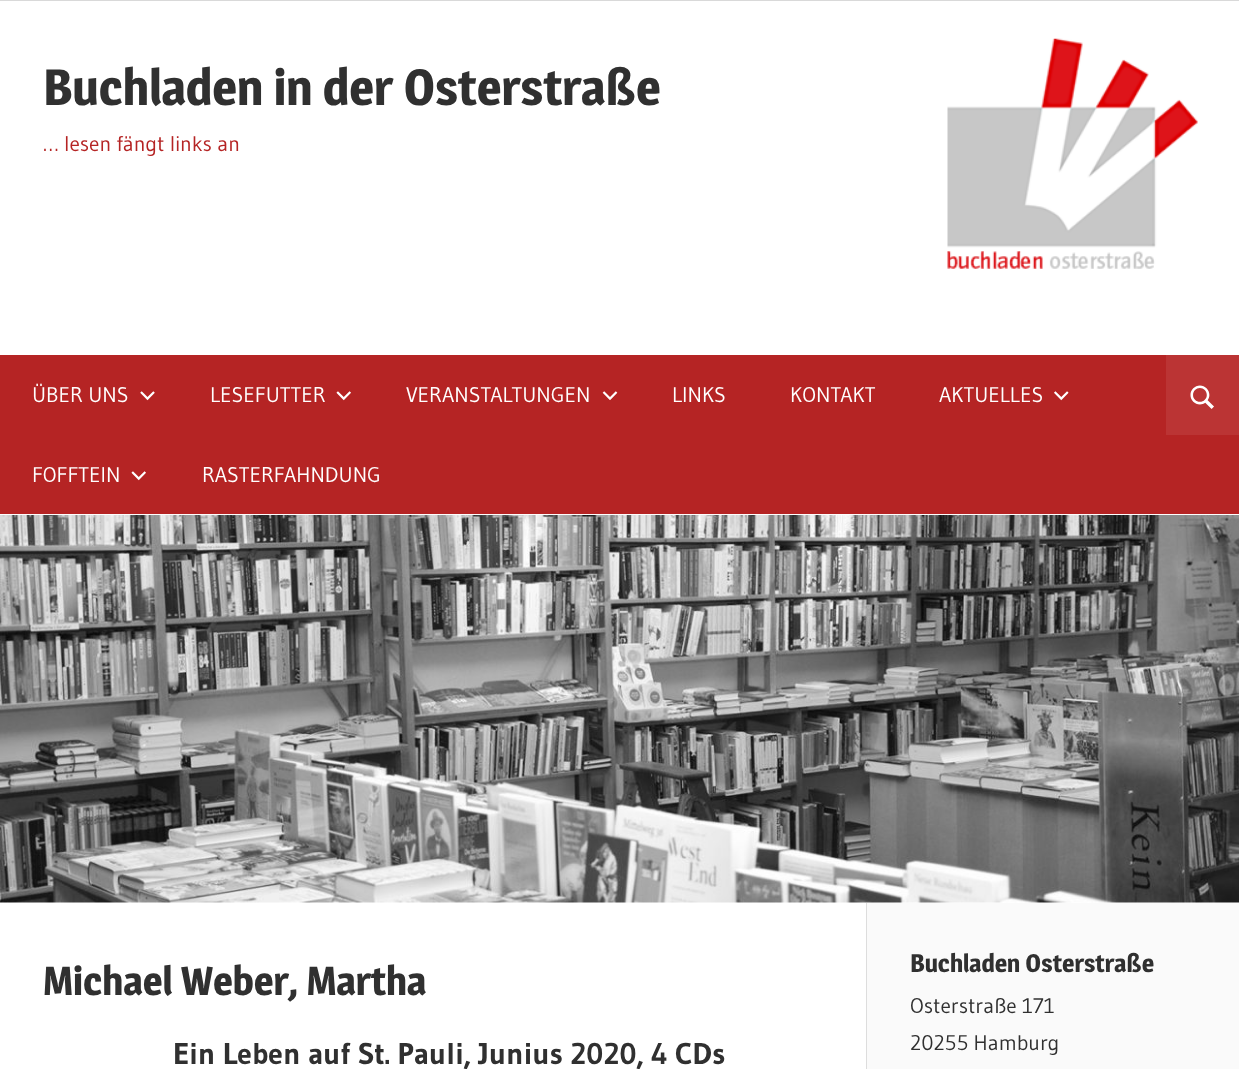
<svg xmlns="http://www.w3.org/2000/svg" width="1239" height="1069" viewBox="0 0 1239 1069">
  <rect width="100%" height="100%" fill="#d9d9d9"/>
  <rect x="0" y="1" width="1239" height="1068" fill="#ffffff"/>
  <text x="43" y="105" font-family="Magra" font-size="50" font-weight="bold" fill="#303030">Buchladen in der Osterstraße</text>
  <text x="43" y="151" font-family="Gudea" font-size="21.25" fill="#b52424">… lesen fängt links an</text>
  <image x="947" y="38" width="251" height="231" href="img1.png"/>
  <rect x="0" y="355" width="1239" height="159" fill="#b52424"/>
  <text x="32" y="402" font-family="Gudea" font-size="21.25" fill="#ffffff">ÜBER UNS</text>
  <image x="140" y="391" width="15" height="10" href="img2.png"/>
  <text x="210" y="402" font-family="Gudea" font-size="21.25" fill="#ffffff">LESEFUTTER</text>
  <image x="336" y="391" width="15" height="10" href="img3.png"/>
  <text x="406" y="402" font-family="Gudea" font-size="21.25" fill="#ffffff">VERANSTALTUNGEN</text>
  <image x="602" y="391" width="16" height="9" href="img4.png"/>
  <text x="672" y="402" font-family="Gudea" font-size="21.25" fill="#ffffff">LINKS</text>
  <text x="790" y="402" font-family="Gudea" font-size="21.25" fill="#ffffff">KONTAKT</text>
  <text x="939" y="402" font-family="Gudea" font-size="21.25" fill="#ffffff">AKTUELLES</text>
  <image x="1054" y="391" width="15" height="10" href="img5.png"/>
  <text x="32" y="482" font-family="Gudea" font-size="21.25" fill="#ffffff">FOFFTEIN</text>
  <image x="131" y="471" width="15" height="10" href="img3.png"/>
  <text x="202" y="482" font-family="Gudea" font-size="21.25" fill="#ffffff">RASTERFAHNDUNG</text>
  <rect x="1166" y="355" width="73" height="80" fill="#bb3434"/>
  <image x="1190" y="385" width="24" height="24" href="img6.png"/>
  <image x="0" y="515" width="1239" height="388" href="img7.png"/>
  <text x="43" y="995" font-family="Magra" font-size="40" font-weight="bold" fill="#303030">Michael Weber, Martha</text>
  <text x="173" y="1064" font-family="Gudea" font-size="30" font-weight="bold" fill="#303030">Ein Leben auf St. Pauli, Junius 2020, 4 CDs</text>
  <rect x="867" y="903" width="372" height="166" fill="#fafafa"/>
  <rect x="866" y="903" width="1" height="166" fill="#dddddd"/>
  <text x="910" y="972" font-family="Magra" font-size="25" font-weight="bold" fill="#303030">Buchladen Osterstraße</text>
  <text x="910" y="1013" font-family="Gudea" font-size="21.25" fill="#303030">Osterstraße 171</text>
  <text x="910" y="1050" font-family="Gudea" font-size="21.25" fill="#303030">20255 Hamburg</text>
</svg>
